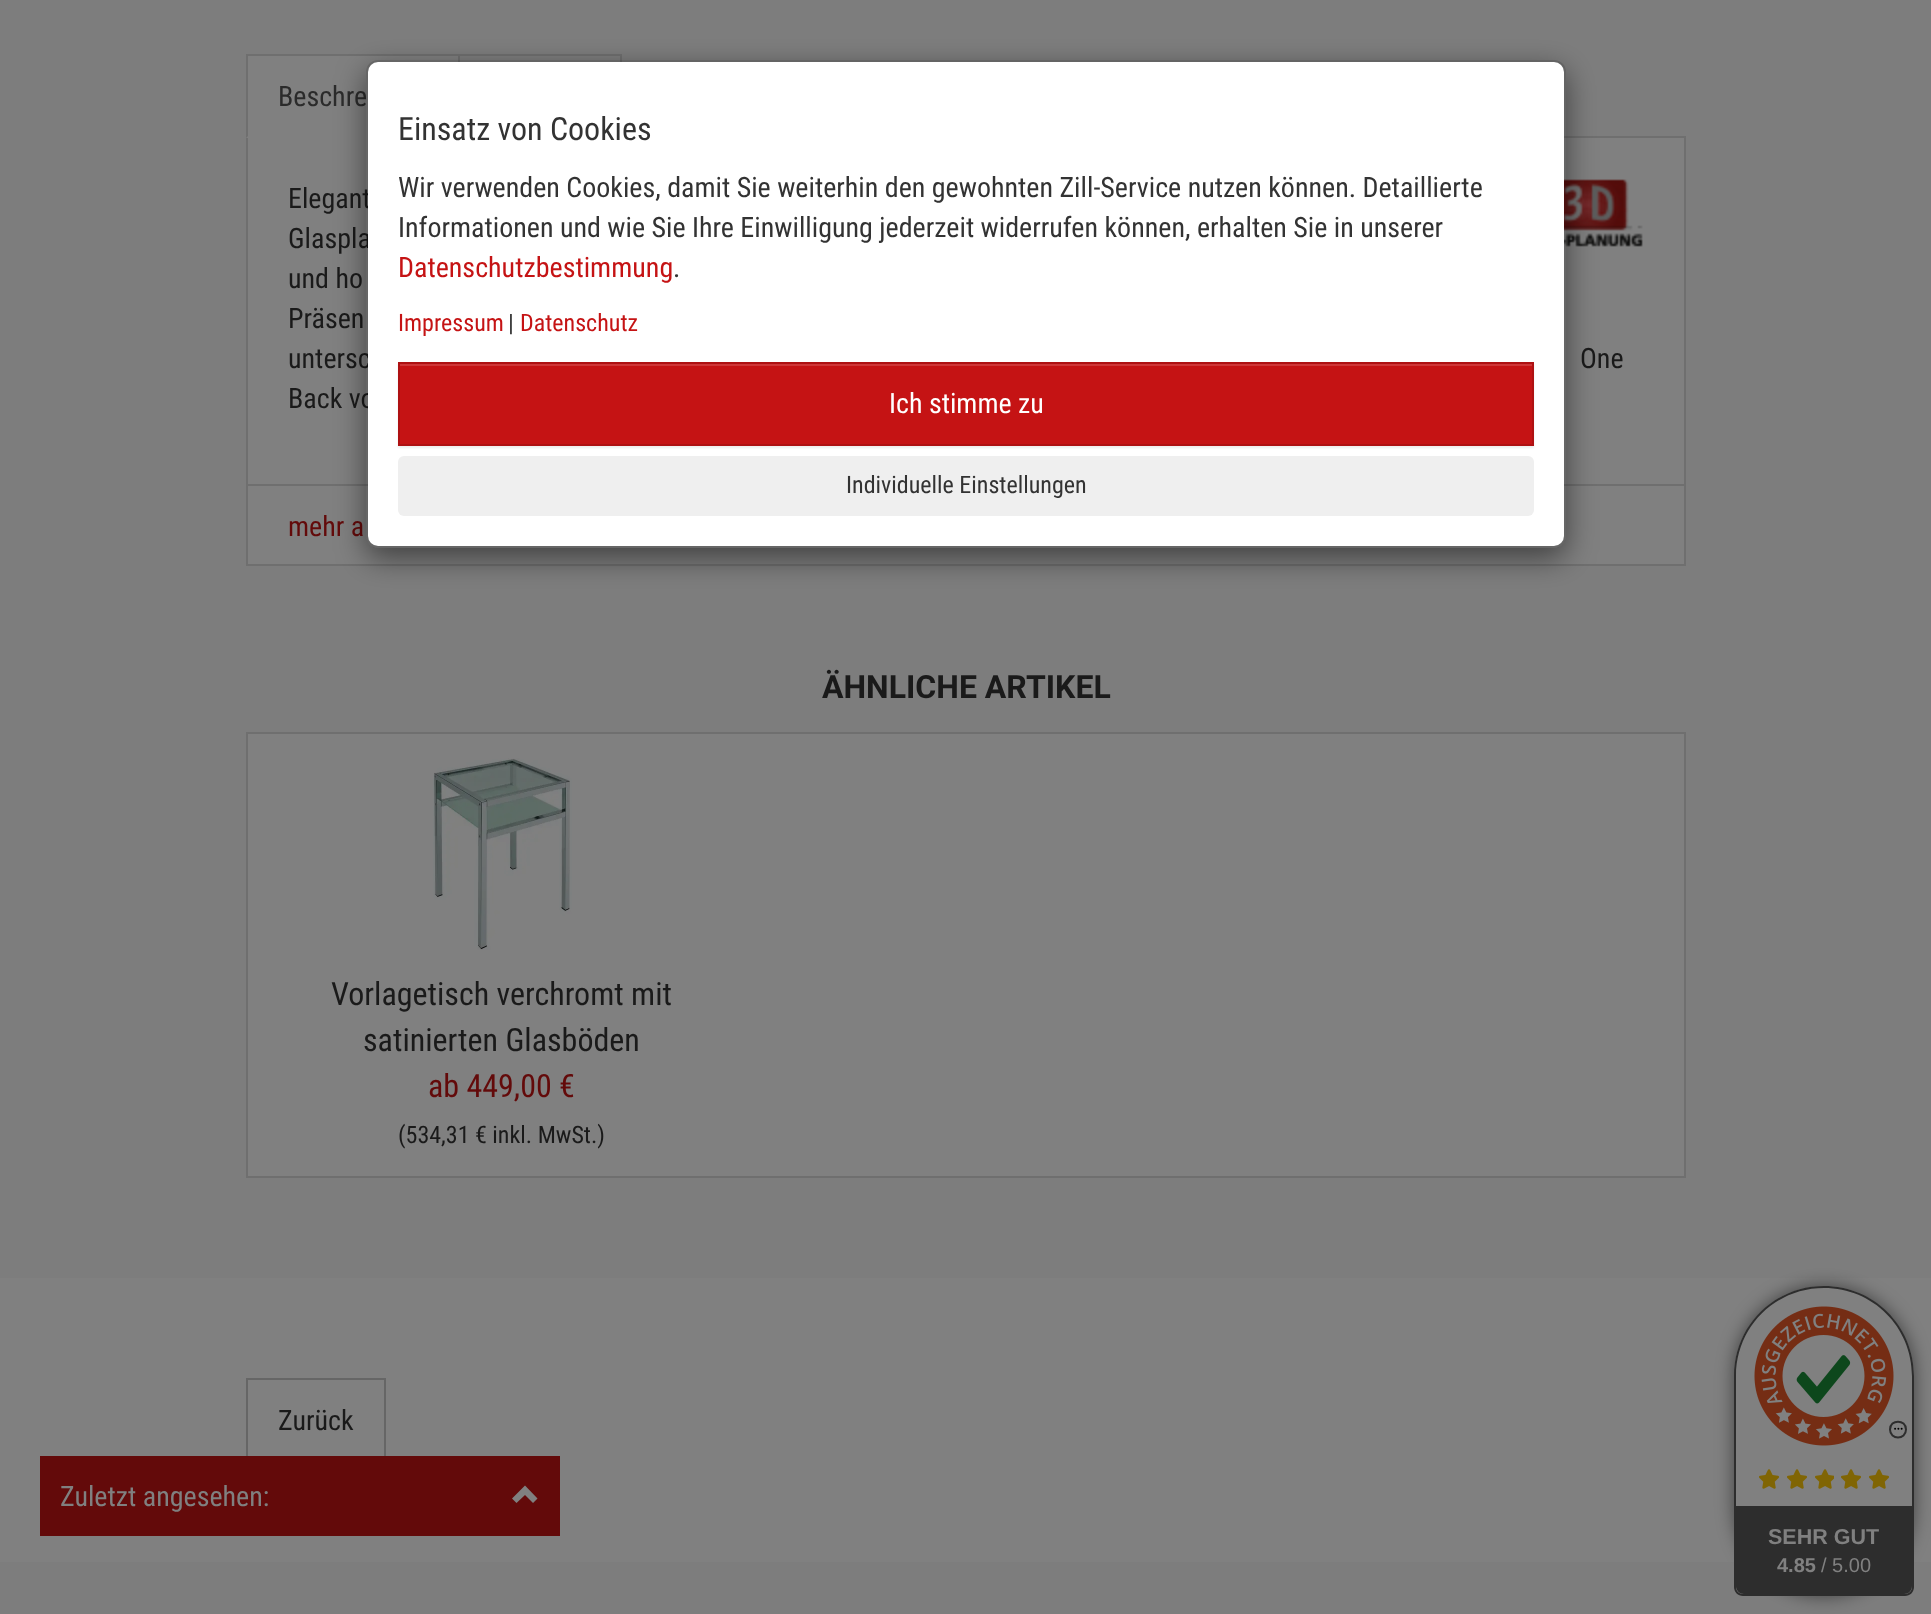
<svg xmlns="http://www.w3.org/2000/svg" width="1931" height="1614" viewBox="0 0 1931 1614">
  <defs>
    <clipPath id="clip1"><path d="M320 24H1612V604H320ZM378 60H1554C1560.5 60 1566 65.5 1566 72V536C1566 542.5 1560.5 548 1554 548H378C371.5 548 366 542.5 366 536V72C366 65.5 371.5 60 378 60Z" clip-rule="evenodd"/></clipPath>
    <filter id="blur1" x="-50%" y="-200%" width="200%" height="500%"><feGaussianBlur stdDeviation="15"/></filter>
    <filter id="blur2" x="-50%" y="-200%" width="200%" height="500%"><feGaussianBlur stdDeviation="1"/></filter>
    <clipPath id="clip2"><path d="M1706 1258H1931V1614H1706ZM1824 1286C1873.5 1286 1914 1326.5 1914 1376V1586C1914 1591.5 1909.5 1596 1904 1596H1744C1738.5 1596 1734 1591.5 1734 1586V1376C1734 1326.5 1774.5 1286 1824 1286Z" clip-rule="evenodd"/></clipPath>
    <filter id="blur3" x="-50%" y="-200%" width="200%" height="500%"><feGaussianBlur stdDeviation="9"/></filter>
  </defs>
  <rect width="100%" height="100%" fill="#808080"/>
  <rect x="0" y="0" width="1931" height="1278" fill="#7d7d7d"/>
  <rect x="1564" y="136" width="122" height="2" fill="#6f6f6f"/>
  <rect x="246" y="54" width="214" height="2" fill="#6f6f6f"/>
  <path d="M460 54V138L458 136V56Z" fill="#6f6f6f"/>
  <rect x="458" y="54" width="164" height="2" fill="#6f6f6f"/>
  <rect x="620" y="54" width="2" height="8" fill="#6f6f6f"/>
  <rect x="246" y="56" width="212" height="82" fill="#808080"/>
  <path d="M246 138V54L248 56V136Z" fill="#6f6f6f"/>
  <text x="278" y="106" font-family="Roboto Condensed" font-size="28" fill="#2b2b2b">Beschre</text>
  <rect x="248" y="138" width="1436" height="346" fill="#808080"/>
  <rect x="1684" y="138" width="2" height="428" fill="#6f6f6f"/>
  <rect x="246" y="484" width="1440" height="2" fill="#6f6f6f"/>
  <rect x="246" y="138" width="2" height="348" fill="#6f6f6f"/>
  <image x="1564" y="179" width="79" height="68" href="img1.png"/>
  <text x="288" y="208" font-family="Roboto Condensed" font-size="28" fill="#1a1a1a">Elegant</text>
  <text x="288" y="248" font-family="Roboto Condensed" font-size="28" fill="#1a1a1a">Glaspla</text>
  <text x="288" y="288" font-family="Roboto Condensed" font-size="28" fill="#1a1a1a">und ho</text>
  <text x="288" y="328" font-family="Roboto Condensed" font-size="28" fill="#1a1a1a">Präsen</text>
  <text x="288" y="368" font-family="Roboto Condensed" font-size="28" fill="#1a1a1a">untersc</text>
  <text x="1580" y="368" font-family="Roboto Condensed" font-size="28" fill="#1a1a1a">One</text>
  <text x="288" y="408" font-family="Roboto Condensed" font-size="28" fill="#1a1a1a">Back vo</text>
  <rect x="248" y="486" width="1436" height="78" fill="#808080"/>
  <rect x="246" y="564" width="1440" height="2" fill="#6f6f6f"/>
  <rect x="246" y="486" width="2" height="80" fill="#6f6f6f"/>
  <text x="288" y="536" font-family="Roboto Condensed" font-size="28" fill="#630a0a">mehr a</text>
  <text x="822" y="698" font-family="Roboto" font-size="32" font-weight="bold" fill="#1a1a1a">ÄHNLICHE ARTIKEL</text>
  <rect x="247" y="733" width="1438" height="444" fill="#808080" stroke="#6f6f6f" stroke-width="2"/>
  <image x="433" y="758" width="139" height="192" href="img2.png"/>
  <text x="331" y="1005" font-family="Roboto Condensed" font-size="32" fill="#1a1a1a">Vorlagetisch verchromt mit</text>
  <text x="363" y="1051" font-family="Roboto Condensed" font-size="32" fill="#1a1a1a">satinierten Glasböden</text>
  <text x="428" y="1097" font-family="Roboto Condensed" font-size="32" fill="#630a0a">ab 449,00 €</text>
  <text x="398" y="1143" font-family="Roboto Condensed" font-size="24" fill="#1a1a1a">(534,31 € inkl. MwSt.)</text>
  <g clip-path="url(#clip1)">
    <rect x="366" y="70" width="1200" height="488" rx="12" fill="#000000" fill-opacity="0.5" filter="url(#blur1)"/>
  </g>
  <rect x="368" y="62" width="1196" height="484" rx="10" fill="#ffffff"/>
  <rect x="367" y="61" width="1198" height="486" rx="11" fill="none" stroke="#000000" stroke-opacity="0.2" stroke-width="2"/>
  <text x="398" y="140" font-family="Roboto Condensed" font-size="32" fill="#333333">Einsatz von Cookies</text>
  <text x="398" y="197" font-family="Roboto Condensed" font-size="28" fill="#333333">Wir verwenden Cookies, damit Sie weiterhin den gewohnten Zill-Service nutzen können. Detaillierte</text>
  <text x="398" y="237" font-family="Roboto Condensed" font-size="28" fill="#333333">Informationen und wie Sie Ihre Einwilligung jederzeit widerrufen können, erhalten Sie in unserer</text>
  <text x="398" y="277" font-family="Roboto Condensed" font-size="28" fill="#c51314">Datenschutzbestimmung</text>
  <text x="673" y="277" font-family="Roboto Condensed" font-size="28" fill="#333333">.</text>
  <text x="398" y="331" font-family="Roboto Condensed" font-size="24" fill="#c51314">Impressum</text>
  <text x="508" y="331" font-family="Roboto Condensed" font-size="24" fill="#333333">|</text>
  <text x="520" y="331" font-family="Roboto Condensed" font-size="24" fill="#c51314">Datenschutz</text>
  <rect x="398" y="364" width="1136" height="84" fill="#000000" fill-opacity="0.07" filter="url(#blur2)"/>
  <rect x="400" y="366" width="1132" height="78" fill="#c51314"/>
  <rect x="400" y="364" width="1132" height="2" fill="#ce3637"/>
  <rect x="399" y="363" width="1134" height="82" fill="none" stroke="#ae1112" stroke-width="2"/>
  <text x="889" y="413" font-family="Roboto Condensed" font-size="28" fill="#ffffff">Ich stimme zu</text>
  <rect x="398" y="456" width="1136" height="60" rx="6" fill="#efefef"/>
  <text x="846" y="493" font-family="Roboto Condensed" font-size="24" fill="#333333">Individuelle Einstellungen</text>
  <rect x="247" y="1379" width="138" height="82" fill="none" stroke="#666666" stroke-width="2"/>
  <text x="278" y="1430" font-family="Roboto Condensed" font-size="28" fill="#1a1a1a">Zurück</text>
  <rect x="40" y="1456" width="520" height="80" fill="#630a0a"/>
  <text x="60" y="1506" font-family="Roboto Condensed" font-size="28" fill="#808080">Zuletzt angesehen:</text>
  <path d="M537.5 1498.5L533 1503L525 1495L516.5 1503L512 1498.5L525 1485.5Z" fill="#808080"/>
  <rect x="0" y="1562" width="1931" height="52" fill="#7d7d7d"/>
  <g clip-path="url(#clip2)">
    <rect x="1734" y="1286" width="180" height="310" rx="90" fill="#000000" fill-opacity="0.5" filter="url(#blur3)"/>
  </g>
  <path d="M1824 1286C1874 1286 1914 1326 1914 1376V1506H1734V1376C1734 1326 1774 1286 1824 1286ZM1824 1288C1873 1288 1912 1327 1912 1376V1506H1736V1376C1736 1327 1775 1288 1824 1288Z" fill="#2d2d2d" fill-rule="evenodd"/>
  <image x="1754" y="1306" width="140" height="140" href="img3.png"/>
  <image x="1759" y="1469" width="20" height="20" href="img4.png"/>
  <image x="1787" y="1469" width="20" height="20" href="img4.png"/>
  <image x="1815" y="1469" width="19" height="20" href="img5.png"/>
  <image x="1841" y="1469" width="20" height="20" href="img4.png"/>
  <image x="1869" y="1469" width="20" height="20" href="img4.png"/>
  <path d="M1906 1429.5C1906 1440 1890 1440 1890 1429.5C1890 1419 1906 1419 1906 1429.5Z" fill="none" stroke="#2d2d2d" stroke-width="2"/>
  <image x="1894" y="1427" width="9" height="3" href="img6.png"/>
  <path d="M1736 1506H1912V1586C1912 1590.5 1908.5 1594 1904 1594H1744C1739.5 1594 1736 1590.5 1736 1586Z" fill="#2d2d2d"/>
  <path d="M1734 1506H1914V1587C1914 1592 1910 1596 1905 1596H1743C1738 1596 1734 1592 1734 1587ZM1736 1506H1912V1587C1912 1591 1909 1594 1905 1594H1743C1739 1594 1736 1591 1736 1587Z" fill="#2d2d2d" fill-rule="evenodd"/>
  <text x="1768" y="1544" font-family="Liberation Sans" font-size="21.5" font-weight="bold" fill="#808080">SEHR GUT</text>
  <text x="1777" y="1572" font-family="Liberation Sans" font-size="20" font-weight="bold" fill="#808080">4.85</text>
  <text x="1821" y="1572" font-family="Liberation Sans" font-size="20" fill="#808080">/ 5.00</text>
</svg>
